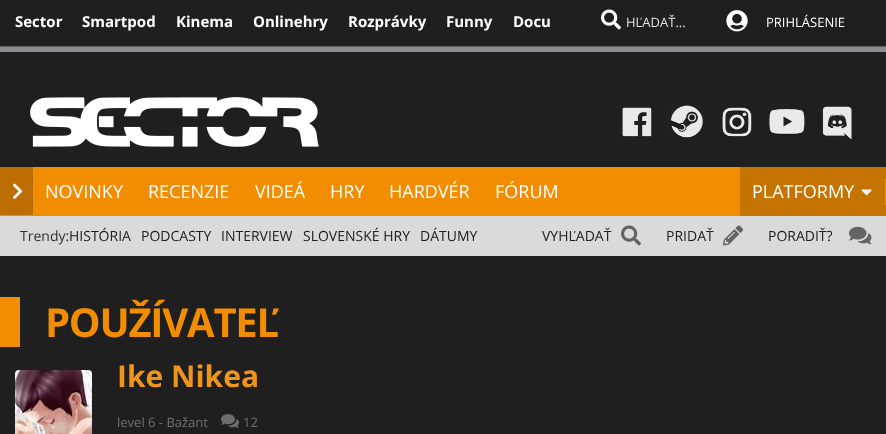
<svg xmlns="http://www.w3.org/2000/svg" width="886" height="434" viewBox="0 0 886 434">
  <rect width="100%" height="100%" fill="#8a8b8f"/>
  <rect x="0" y="0" width="886" height="46" fill="#1f1f1f"/>
  <rect x="0" y="46" width="886" height="1" fill="#606060"/>
  <text x="15" y="27" font-family="Open Sans" font-size="15" font-weight="bold" fill="#ffffff">Sector</text>
  <text x="82" y="27" font-family="Open Sans" font-size="15" font-weight="bold" fill="#ffffff">Smartpod</text>
  <text x="176" y="27" font-family="Open Sans" font-size="15" font-weight="bold" fill="#ffffff">Kinema</text>
  <text x="253" y="27" font-family="Open Sans" font-size="15" font-weight="bold" fill="#ffffff">Onlinehry</text>
  <text x="348" y="27" font-family="Open Sans" font-size="15" font-weight="bold" fill="#ffffff">Rozprávky</text>
  <text x="446" y="27" font-family="Open Sans" font-size="15" font-weight="bold" fill="#ffffff">Funny</text>
  <text x="513" y="27" font-family="Open Sans" font-size="15" font-weight="bold" fill="#ffffff">Docu</text>
  <image x="601" y="9" width="20" height="21" href="img1.png"/>
  <text x="626" y="27" font-family="Open Sans" font-size="13" fill="#e0e0e0">HĽADAŤ...</text>
  <image x="726" y="10" width="22" height="22" href="img2.png"/>
  <text x="766" y="27" font-family="Open Sans" font-size="13" fill="#ffffff">PRIHLÁSENIE</text>
  <rect x="0" y="52" width="886" height="382" fill="#1f1f1f"/>
  <image x="30" y="97" width="289" height="50" href="img3.png"/>
  <image x="622" y="107" width="30" height="30" href="img4.png"/>
  <image x="670" y="105" width="33" height="33" href="img5.png"/>
  <image x="722" y="107" width="30" height="30" href="img6.png"/>
  <image x="769" y="109" width="36" height="26" href="img7.png"/>
  <image x="822" y="106" width="30" height="34" href="img8.png"/>
  <rect x="0" y="167" width="740" height="49" fill="#f28c00"/>
  <rect x="0" y="167" width="33" height="48" fill="#bc6f00"/>
  <image x="13" y="183" width="10" height="16" href="img9.png"/>
  <text x="45" y="198" font-family="Open Sans" font-size="18" fill="#ffffff">NOVINKY</text>
  <text x="148" y="198" font-family="Open Sans" font-size="18" fill="#ffffff">RECENZIE</text>
  <text x="255" y="198" font-family="Open Sans" font-size="18" fill="#ffffff">VIDEÁ</text>
  <text x="330" y="198" font-family="Open Sans" font-size="18" fill="#ffffff">HRY</text>
  <text x="389" y="198" font-family="Open Sans" font-size="18" fill="#ffffff">HARDVÉR</text>
  <text x="495" y="198" font-family="Open Sans" font-size="18" fill="#ffffff">FÓRUM</text>
  <rect x="740" y="167" width="146" height="49" fill="#c57401"/>
  <rect x="885" y="179" width="1" height="26" fill="#f28c00"/>
  <text x="752" y="198" font-family="Open Sans" font-size="18" fill="#ffffff">PLATFORMY</text>
  <image x="861" y="189" width="11" height="7" href="img10.png"/>
  <rect x="0" y="216" width="886" height="40" fill="#dadada"/>
  <text x="20" y="241" font-family="Open Sans" font-size="14" fill="#303030">Trendy:</text>
  <text x="69" y="241" font-family="Open Sans" font-size="14" fill="#202020">HISTÓRIA</text>
  <text x="141" y="241" font-family="Open Sans" font-size="14" fill="#202020">PODCASTY</text>
  <text x="221" y="241" font-family="Open Sans" font-size="14" fill="#202020">INTERVIEW</text>
  <text x="303" y="241" font-family="Open Sans" font-size="14" fill="#202020">SLOVENSKÉ HRY</text>
  <text x="420" y="241" font-family="Open Sans" font-size="14" fill="#202020">DÁTUMY</text>
  <text x="542" y="241" font-family="Open Sans" font-size="14" fill="#202020">VYHĽADAŤ</text>
  <image x="621" y="225" width="20" height="21" href="img11.png"/>
  <text x="666" y="241" font-family="Open Sans" font-size="14" fill="#202020">PRIDAŤ</text>
  <image x="723" y="225" width="20" height="21" href="img12.png"/>
  <text x="768" y="241" font-family="Open Sans" font-size="14" fill="#202020">PORADIŤ?</text>
  <image x="849" y="226" width="23" height="19" href="img13.png"/>
  <rect x="0" y="297" width="20" height="50" fill="#f28c00"/>
  <text x="45" y="337" font-family="Open Sans" font-size="40" font-weight="bold" letter-spacing="-1.25" fill="#f28c00">POUŽÍVATEĽ</text>
  <image x="15" y="370" width="77" height="64" href="img14.png"/>
  <text x="117" y="387" font-family="Open Sans" font-size="30" font-weight="bold" fill="#ef951c">Ike Nikea</text>
  <text x="117" y="427" font-family="Open Sans" font-size="13" fill="#707070">level 6 - Bažant</text>
  <image x="221" y="414" width="18" height="14" href="img15.png"/>
  <text x="243" y="427" font-family="Open Sans" font-size="13" fill="#707070">12</text>
</svg>
